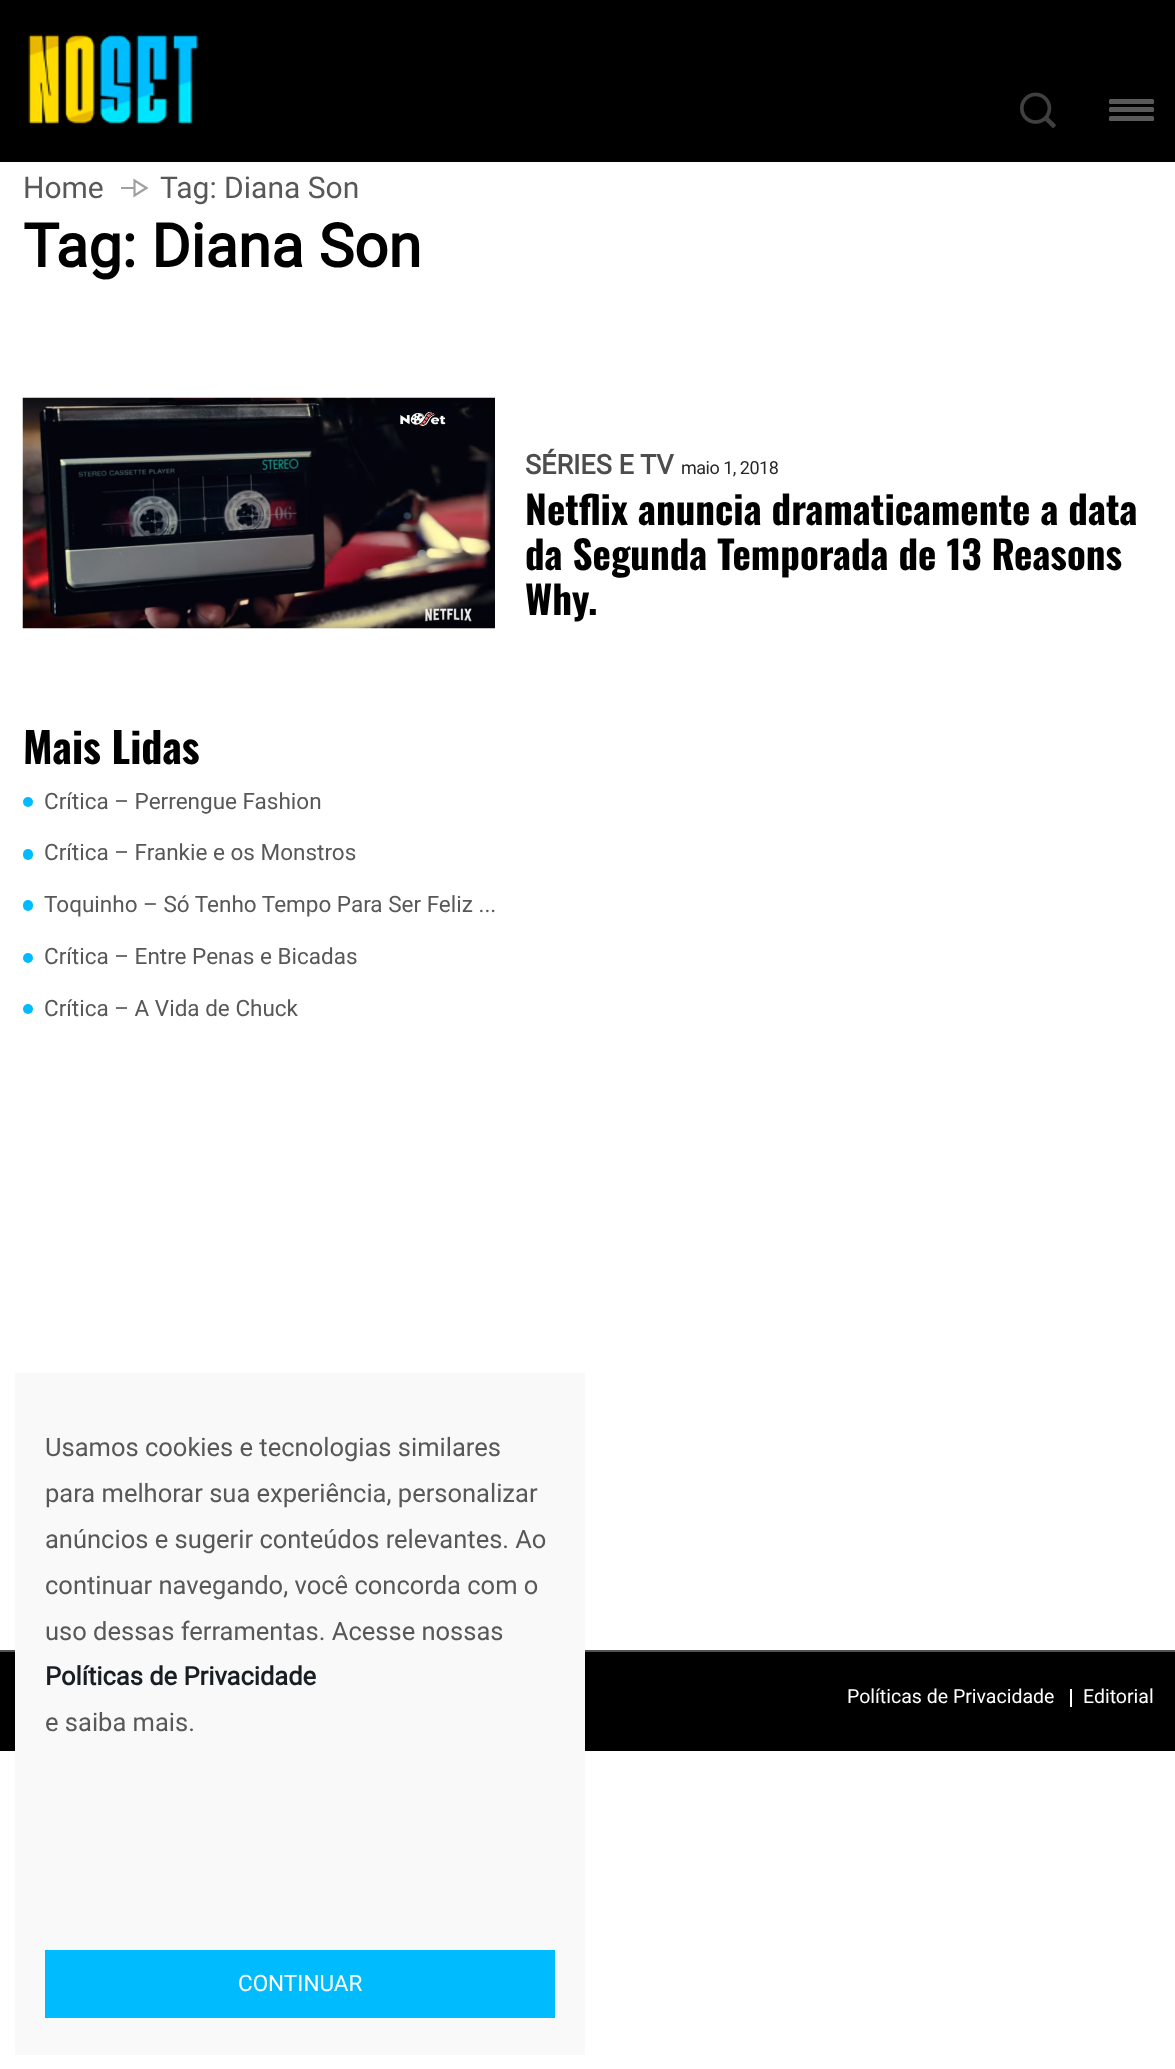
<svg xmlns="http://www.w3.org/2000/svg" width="1175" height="2069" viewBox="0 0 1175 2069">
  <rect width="100%" height="100%" fill="#ffffff"/>
  <rect x="0" y="0" width="1175" height="162" fill="#000000"/>
  <image x="28" y="34" width="171" height="90" href="img1.png"/>
  <image x="1020" y="92" width="36" height="36" href="img2.png"/>
  <rect x="1109" y="99" width="45" height="5" rx="1.5" fill="#5a5a5a"/>
  <rect x="1109" y="107" width="45" height="5" rx="1.5" fill="#5a5a5a"/>
  <rect x="1109" y="116" width="45" height="5" rx="1.5" fill="#5a5a5a"/>
  <text x="23" y="198" font-family="Roboto" font-size="30" fill="#585858">Home</text>
  <rect x="121" y="187" width="14" height="2" fill="#a0a0a0"/>
  <path d="M134.5 195.5L146.5 188L134.5 180.5Z" fill="none" stroke="#a0a0a0" stroke-width="2.2" stroke-linecap="round"/>
  <text x="160" y="198" font-family="Roboto" font-size="30" fill="#585858">Tag: Diana Son</text>
  <text x="23" y="267" font-family="Roboto" font-size="60" font-weight="bold" fill="#000000">Tag: Diana Son</text>
  <image x="22" y="397" width="473" height="232" href="img3.png"/>
  <text x="525" y="474" font-family="Roboto" font-size="27" font-weight="bold" fill="#4d4d4d">SÉRIES E TV</text>
  <text x="681" y="474" font-family="Roboto" font-size="18" letter-spacing="-0.5" fill="#272727">maio 1, 2018</text>
  <text x="525" y="525" font-family="Oswald" font-size="39" font-weight="bold" fill="#000000">Netflix anuncia dramaticamente a data</text>
  <text x="525" y="570" font-family="Oswald" font-size="39" font-weight="bold" fill="#000000">da Segunda Temporada de 13 Reasons</text>
  <text x="525" y="615" font-family="Oswald" font-size="39" font-weight="bold" fill="#000000">Why.</text>
  <text x="23" y="764" font-family="Oswald" font-size="42" font-weight="bold" fill="#000000">Mais Lidas</text>
  <circle cx="28" cy="802" r="5" fill="#00bcff"/>
  <text x="44" y="809" font-family="Roboto" font-size="22.5" fill="#585858">Crítica – Perrengue Fashion</text>
  <rect x="23" y="849" width="10" height="11" rx="5" fill="#00bcff"/>
  <text x="44" y="860" font-family="Roboto" font-size="22.5" fill="#585858">Crítica – Frankie e os Monstros</text>
  <rect x="23" y="900" width="10" height="11" rx="5" fill="#00bcff"/>
  <text x="44" y="912" font-family="Roboto" font-size="22.5" fill="#585858">Toquinho – Só Tenho Tempo Para Ser Feliz ...</text>
  <circle cx="28" cy="958" r="5" fill="#00bcff"/>
  <text x="44" y="964" font-family="Roboto" font-size="22.5" fill="#585858">Crítica – Entre Penas e Bicadas</text>
  <circle cx="28" cy="1009" r="5" fill="#00bcff"/>
  <text x="44" y="1016" font-family="Roboto" font-size="22.5" fill="#585858">Crítica – A Vida de Chuck</text>
  <rect x="0" y="1652" width="1175" height="99" fill="#000000"/>
  <rect x="0" y="1650" width="1175" height="2" fill="#525252"/>
  <text x="847" y="1703" font-family="Roboto" font-size="19.5" fill="#ffffff">Políticas de Privacidade</text>
  <rect x="1070" y="1689" width="2" height="18" fill="#ffffff"/>
  <text x="1083" y="1703" font-family="Roboto" font-size="19.5" fill="#ffffff">Editorial</text>
  <rect x="15" y="1373" width="570" height="682" fill="#f9f9f9"/>
  <text x="45" y="1456" font-family="Roboto" font-size="25.5" fill="#585858">Usamos cookies e tecnologias similares</text>
  <text x="45" y="1502" font-family="Roboto" font-size="25.5" fill="#585858">para melhorar sua experiência, personalizar</text>
  <text x="45" y="1548" font-family="Roboto" font-size="25.5" fill="#585858">anúncios e sugerir conteúdos relevantes. Ao</text>
  <text x="45" y="1594" font-family="Roboto" font-size="25.5" fill="#585858">continuar navegando, você concorda com o</text>
  <text x="45" y="1640" font-family="Roboto" font-size="25.5" fill="#585858">uso dessas ferramentas. Acesse nossas</text>
  <text x="45" y="1685" font-family="Roboto" font-size="25.5" font-weight="bold" fill="#191e23">Políticas de Privacidade</text>
  <text x="45" y="1731" font-family="Roboto" font-size="25.5" fill="#585858">e saiba mais.</text>
  <rect x="45" y="1950" width="510" height="68" fill="#00bcff"/>
  <text x="238" y="1991" font-family="Roboto" font-size="22.5" fill="#ffffff">CONTINUAR</text>
</svg>
